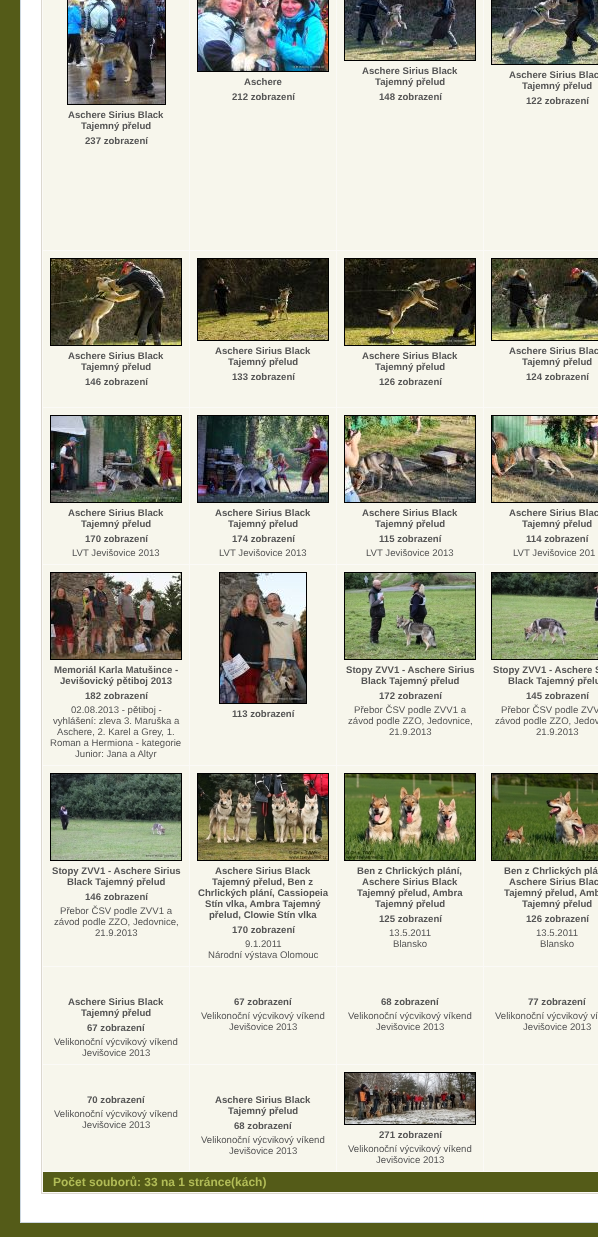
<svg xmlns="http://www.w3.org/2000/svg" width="598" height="1237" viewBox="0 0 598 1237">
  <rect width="100%" height="100%" fill="#545b18"/>
  <rect x="20.5" y="-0.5" width="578" height="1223" fill="#ffffff" stroke="#ccd7e0"/>
  <rect x="41.5" y="-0.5" width="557" height="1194" fill="#fbfaf7" stroke="#dcd8cf"/>
  <rect x="190" y="0" width="146" height="250" fill="#f7f6ec"/>
  <rect x="197.5" y="-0.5" width="131" height="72" fill="none" stroke="#000000"/>
  <image x="198" y="0" width="130" height="71" href="img1.png"/>
  <text x="244" y="85" font-family="Liberation Sans" font-size="9.6" font-weight="bold" fill="#555555">Aschere</text>
  <text x="232" y="100" font-family="Liberation Sans" font-size="9.6" font-weight="bold" fill="#555555">212 zobrazení</text>
  <rect x="337" y="0" width="146" height="250" fill="#f7f6ec"/>
  <rect x="344.5" y="-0.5" width="131" height="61" fill="none" stroke="#000000"/>
  <image x="345" y="0" width="130" height="60" href="img2.png"/>
  <text x="362" y="74" font-family="Liberation Sans" font-size="9.6" font-weight="bold" fill="#555555">Aschere Sirius Black</text>
  <text x="375" y="85" font-family="Liberation Sans" font-size="9.6" font-weight="bold" fill="#555555">Tajemný přelud</text>
  <text x="379" y="100" font-family="Liberation Sans" font-size="9.6" font-weight="bold" fill="#555555">148 zobrazení</text>
  <rect x="484" y="0" width="114" height="250" fill="#f7f6ec"/>
  <rect x="491.5" y="-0.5" width="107" height="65" fill="none" stroke="#000000"/>
  <image x="492" y="0" width="106" height="64" href="img3.png"/>
  <text x="509" y="78" font-family="Liberation Sans" font-size="9.6" font-weight="bold" fill="#555555">Aschere Sirius Blac</text>
  <text x="522" y="89" font-family="Liberation Sans" font-size="9.6" font-weight="bold" fill="#555555">Tajemný přelud</text>
  <text x="526" y="104" font-family="Liberation Sans" font-size="9.6" font-weight="bold" fill="#555555">122 zobrazení</text>
  <rect x="43" y="0" width="146" height="250" fill="#f7f6ec"/>
  <rect x="67.5" y="-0.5" width="98" height="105" fill="none" stroke="#000000"/>
  <image x="68" y="0" width="97" height="104" href="img4.png"/>
  <text x="68" y="118" font-family="Liberation Sans" font-size="9.6" font-weight="bold" fill="#555555">Aschere Sirius Black</text>
  <text x="81" y="129" font-family="Liberation Sans" font-size="9.6" font-weight="bold" fill="#555555">Tajemný přelud</text>
  <text x="85" y="144" font-family="Liberation Sans" font-size="9.6" font-weight="bold" fill="#555555">237 zobrazení</text>
  <rect x="43" y="251" width="146" height="156" fill="#f7f6ec"/>
  <rect x="50.5" y="258.5" width="131" height="87" fill="none" stroke="#000000"/>
  <image x="51" y="259" width="130" height="86" href="img5.png"/>
  <text x="68" y="359" font-family="Liberation Sans" font-size="9.6" font-weight="bold" fill="#555555">Aschere Sirius Black</text>
  <text x="81" y="370" font-family="Liberation Sans" font-size="9.6" font-weight="bold" fill="#555555">Tajemný přelud</text>
  <text x="85" y="385" font-family="Liberation Sans" font-size="9.6" font-weight="bold" fill="#555555">146 zobrazení</text>
  <rect x="190" y="251" width="146" height="156" fill="#f7f6ec"/>
  <rect x="197.5" y="258.5" width="131" height="82" fill="none" stroke="#000000"/>
  <image x="198" y="259" width="130" height="81" href="img6.png"/>
  <text x="215" y="354" font-family="Liberation Sans" font-size="9.6" font-weight="bold" fill="#555555">Aschere Sirius Black</text>
  <text x="228" y="365" font-family="Liberation Sans" font-size="9.6" font-weight="bold" fill="#555555">Tajemný přelud</text>
  <text x="232" y="380" font-family="Liberation Sans" font-size="9.6" font-weight="bold" fill="#555555">133 zobrazení</text>
  <rect x="337" y="251" width="146" height="156" fill="#f7f6ec"/>
  <rect x="344.5" y="258.5" width="131" height="87" fill="none" stroke="#000000"/>
  <image x="345" y="259" width="130" height="86" href="img7.png"/>
  <text x="362" y="359" font-family="Liberation Sans" font-size="9.6" font-weight="bold" fill="#555555">Aschere Sirius Black</text>
  <text x="375" y="370" font-family="Liberation Sans" font-size="9.6" font-weight="bold" fill="#555555">Tajemný přelud</text>
  <text x="379" y="385" font-family="Liberation Sans" font-size="9.6" font-weight="bold" fill="#555555">126 zobrazení</text>
  <rect x="484" y="251" width="114" height="156" fill="#f7f6ec"/>
  <rect x="491.5" y="258.5" width="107" height="82" fill="none" stroke="#000000"/>
  <image x="492" y="259" width="106" height="81" href="img8.png"/>
  <text x="509" y="354" font-family="Liberation Sans" font-size="9.6" font-weight="bold" fill="#555555">Aschere Sirius Blac</text>
  <text x="522" y="365" font-family="Liberation Sans" font-size="9.6" font-weight="bold" fill="#555555">Tajemný přelud</text>
  <text x="526" y="380" font-family="Liberation Sans" font-size="9.6" font-weight="bold" fill="#555555">124 zobrazení</text>
  <rect x="43" y="408" width="146" height="156" fill="#f7f6ec"/>
  <rect x="50.5" y="415.5" width="131" height="87" fill="none" stroke="#000000"/>
  <image x="51" y="416" width="130" height="86" href="img9.png"/>
  <text x="68" y="516" font-family="Liberation Sans" font-size="9.6" font-weight="bold" fill="#555555">Aschere Sirius Black</text>
  <text x="81" y="527" font-family="Liberation Sans" font-size="9.6" font-weight="bold" fill="#555555">Tajemný přelud</text>
  <text x="85" y="542" font-family="Liberation Sans" font-size="9.6" font-weight="bold" fill="#555555">170 zobrazení</text>
  <text x="72" y="556" font-family="Liberation Sans" font-size="9.6" fill="#555555">LVT Jevišovice 2013</text>
  <rect x="190" y="408" width="146" height="156" fill="#f7f6ec"/>
  <rect x="197.5" y="415.5" width="131" height="87" fill="none" stroke="#000000"/>
  <image x="198" y="416" width="130" height="86" href="img10.png"/>
  <text x="215" y="516" font-family="Liberation Sans" font-size="9.6" font-weight="bold" fill="#555555">Aschere Sirius Black</text>
  <text x="228" y="527" font-family="Liberation Sans" font-size="9.6" font-weight="bold" fill="#555555">Tajemný přelud</text>
  <text x="232" y="542" font-family="Liberation Sans" font-size="9.6" font-weight="bold" fill="#555555">174 zobrazení</text>
  <text x="219" y="556" font-family="Liberation Sans" font-size="9.6" fill="#555555">LVT Jevišovice 2013</text>
  <rect x="337" y="408" width="146" height="156" fill="#f7f6ec"/>
  <rect x="344.5" y="415.5" width="131" height="87" fill="none" stroke="#000000"/>
  <image x="345" y="416" width="130" height="86" href="img11.png"/>
  <text x="362" y="516" font-family="Liberation Sans" font-size="9.6" font-weight="bold" fill="#555555">Aschere Sirius Black</text>
  <text x="375" y="527" font-family="Liberation Sans" font-size="9.6" font-weight="bold" fill="#555555">Tajemný přelud</text>
  <text x="379" y="542" font-family="Liberation Sans" font-size="9.6" font-weight="bold" fill="#555555">115 zobrazení</text>
  <text x="366" y="556" font-family="Liberation Sans" font-size="9.6" fill="#555555">LVT Jevišovice 2013</text>
  <rect x="484" y="408" width="114" height="156" fill="#f7f6ec"/>
  <rect x="491.5" y="415.5" width="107" height="87" fill="none" stroke="#000000"/>
  <image x="492" y="416" width="106" height="86" href="img12.png"/>
  <text x="509" y="516" font-family="Liberation Sans" font-size="9.6" font-weight="bold" fill="#555555">Aschere Sirius Blac</text>
  <text x="522" y="527" font-family="Liberation Sans" font-size="9.6" font-weight="bold" fill="#555555">Tajemný přelud</text>
  <text x="526" y="542" font-family="Liberation Sans" font-size="9.6" font-weight="bold" fill="#555555">114 zobrazení</text>
  <text x="513" y="556" font-family="Liberation Sans" font-size="9.6" fill="#555555">LVT Jevišovice 201</text>
  <rect x="43" y="565" width="146" height="200" fill="#f7f6ec"/>
  <rect x="50.5" y="572.5" width="131" height="87" fill="none" stroke="#000000"/>
  <image x="51" y="573" width="130" height="86" href="img13.png"/>
  <text x="54" y="673" font-family="Liberation Sans" font-size="9.6" font-weight="bold" fill="#555555">Memoriál Karla Matušince -</text>
  <text x="60" y="684" font-family="Liberation Sans" font-size="9.6" font-weight="bold" fill="#555555">Jevišovický pětiboj 2013</text>
  <text x="85" y="699" font-family="Liberation Sans" font-size="9.6" font-weight="bold" fill="#555555">182 zobrazení</text>
  <text x="71" y="713" font-family="Liberation Sans" font-size="9.6" fill="#555555">02.08.2013 - pětiboj -</text>
  <text x="53" y="724" font-family="Liberation Sans" font-size="9.6" fill="#555555">vyhlášení: zleva 3. Maruška a</text>
  <text x="57" y="735" font-family="Liberation Sans" font-size="9.6" fill="#555555">Aschere, 2. Karel a Grey, 1.</text>
  <text x="50" y="746" font-family="Liberation Sans" font-size="9.6" fill="#555555">Roman a Hermiona - kategorie</text>
  <text x="75" y="757" font-family="Liberation Sans" font-size="9.6" fill="#555555">Junior: Jana a Altyr</text>
  <rect x="190" y="565" width="146" height="200" fill="#f7f6ec"/>
  <rect x="219.5" y="572.5" width="87" height="131" fill="none" stroke="#000000"/>
  <image x="220" y="573" width="86" height="130" href="img14.png"/>
  <text x="232" y="717" font-family="Liberation Sans" font-size="9.6" font-weight="bold" fill="#555555">113 zobrazení</text>
  <rect x="337" y="565" width="146" height="200" fill="#f7f6ec"/>
  <rect x="344.5" y="572.5" width="131" height="87" fill="none" stroke="#000000"/>
  <image x="345" y="573" width="130" height="86" href="img15.png"/>
  <text x="346" y="673" font-family="Liberation Sans" font-size="9.6" font-weight="bold" fill="#555555">Stopy ZVV1 - Aschere Sirius</text>
  <text x="361" y="684" font-family="Liberation Sans" font-size="9.6" font-weight="bold" fill="#555555">Black Tajemný přelud</text>
  <text x="379" y="699" font-family="Liberation Sans" font-size="9.6" font-weight="bold" fill="#555555">172 zobrazení</text>
  <text x="354" y="713" font-family="Liberation Sans" font-size="9.6" fill="#555555">Přebor ČSV podle ZVV1 a</text>
  <text x="348" y="724" font-family="Liberation Sans" font-size="9.6" fill="#555555">závod podle ZZO, Jedovnice,</text>
  <text x="389" y="735" font-family="Liberation Sans" font-size="9.6" fill="#555555">21.9.2013</text>
  <rect x="484" y="565" width="114" height="200" fill="#f7f6ec"/>
  <rect x="491.5" y="572.5" width="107" height="87" fill="none" stroke="#000000"/>
  <image x="492" y="573" width="106" height="86" href="img16.png"/>
  <text x="493" y="673" font-family="Liberation Sans" font-size="9.6" font-weight="bold" fill="#555555">Stopy ZVV1 - Aschere S</text>
  <text x="508" y="684" font-family="Liberation Sans" font-size="9.6" font-weight="bold" fill="#555555">Black Tajemný přelu</text>
  <text x="526" y="699" font-family="Liberation Sans" font-size="9.6" font-weight="bold" fill="#555555">145 zobrazení</text>
  <text x="501" y="713" font-family="Liberation Sans" font-size="9.6" fill="#555555">Přebor ČSV podle ZVV</text>
  <text x="495" y="724" font-family="Liberation Sans" font-size="9.6" fill="#555555">závod podle ZZO, Jedov</text>
  <text x="536" y="735" font-family="Liberation Sans" font-size="9.6" fill="#555555">21.9.2013</text>
  <rect x="43" y="766" width="146" height="200" fill="#f7f6ec"/>
  <rect x="50.5" y="773.5" width="131" height="87" fill="none" stroke="#000000"/>
  <image x="51" y="774" width="130" height="86" href="img17.png"/>
  <text x="52" y="874" font-family="Liberation Sans" font-size="9.6" font-weight="bold" fill="#555555">Stopy ZVV1 - Aschere Sirius</text>
  <text x="67" y="885" font-family="Liberation Sans" font-size="9.6" font-weight="bold" fill="#555555">Black Tajemný přelud</text>
  <text x="85" y="900" font-family="Liberation Sans" font-size="9.6" font-weight="bold" fill="#555555">146 zobrazení</text>
  <text x="60" y="914" font-family="Liberation Sans" font-size="9.6" fill="#555555">Přebor ČSV podle ZVV1 a</text>
  <text x="54" y="925" font-family="Liberation Sans" font-size="9.6" fill="#555555">závod podle ZZO, Jedovnice,</text>
  <text x="95" y="936" font-family="Liberation Sans" font-size="9.6" fill="#555555">21.9.2013</text>
  <rect x="190" y="766" width="146" height="200" fill="#f7f6ec"/>
  <rect x="197.5" y="773.5" width="131" height="87" fill="none" stroke="#000000"/>
  <image x="198" y="774" width="130" height="86" href="img18.png"/>
  <text x="215" y="874" font-family="Liberation Sans" font-size="9.6" font-weight="bold" fill="#555555">Aschere Sirius Black</text>
  <text x="212" y="885" font-family="Liberation Sans" font-size="9.6" font-weight="bold" fill="#555555">Tajemný přelud, Ben z</text>
  <text x="198" y="896" font-family="Liberation Sans" font-size="9.6" font-weight="bold" fill="#555555">Chrlických plání, Cassiopeia</text>
  <text x="205" y="907" font-family="Liberation Sans" font-size="9.6" font-weight="bold" fill="#555555">Stín vlka, Ambra Tajemný</text>
  <text x="209" y="918" font-family="Liberation Sans" font-size="9.6" font-weight="bold" fill="#555555">přelud, Clowie Stín vlka</text>
  <text x="232" y="933" font-family="Liberation Sans" font-size="9.6" font-weight="bold" fill="#555555">170 zobrazení</text>
  <text x="245" y="947" font-family="Liberation Sans" font-size="9.6" fill="#555555">9.1.2011</text>
  <text x="208" y="958" font-family="Liberation Sans" font-size="9.6" fill="#555555">Národní výstava Olomouc</text>
  <rect x="337" y="766" width="146" height="200" fill="#f7f6ec"/>
  <rect x="344.5" y="773.5" width="131" height="87" fill="none" stroke="#000000"/>
  <image x="345" y="774" width="130" height="86" href="img19.png"/>
  <text x="357" y="874" font-family="Liberation Sans" font-size="9.6" font-weight="bold" fill="#555555">Ben z Chrlických plání,</text>
  <text x="362" y="885" font-family="Liberation Sans" font-size="9.6" font-weight="bold" fill="#555555">Aschere Sirius Black</text>
  <text x="357" y="896" font-family="Liberation Sans" font-size="9.6" font-weight="bold" fill="#555555">Tajemný přelud, Ambra</text>
  <text x="375" y="907" font-family="Liberation Sans" font-size="9.6" font-weight="bold" fill="#555555">Tajemný přelud</text>
  <text x="379" y="922" font-family="Liberation Sans" font-size="9.6" font-weight="bold" fill="#555555">125 zobrazení</text>
  <text x="389" y="936" font-family="Liberation Sans" font-size="9.6" fill="#555555">13.5.2011</text>
  <text x="393" y="947" font-family="Liberation Sans" font-size="9.6" fill="#555555">Blansko</text>
  <rect x="484" y="766" width="114" height="200" fill="#f7f6ec"/>
  <rect x="491.5" y="773.5" width="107" height="87" fill="none" stroke="#000000"/>
  <image x="492" y="774" width="106" height="86" href="img20.png"/>
  <text x="504" y="874" font-family="Liberation Sans" font-size="9.6" font-weight="bold" fill="#555555">Ben z Chrlických plá</text>
  <text x="509" y="885" font-family="Liberation Sans" font-size="9.6" font-weight="bold" fill="#555555">Aschere Sirius Blac</text>
  <text x="504" y="896" font-family="Liberation Sans" font-size="9.6" font-weight="bold" fill="#555555">Tajemný přelud, Amb</text>
  <text x="522" y="907" font-family="Liberation Sans" font-size="9.6" font-weight="bold" fill="#555555">Tajemný přelud</text>
  <text x="526" y="922" font-family="Liberation Sans" font-size="9.6" font-weight="bold" fill="#555555">126 zobrazení</text>
  <text x="536" y="936" font-family="Liberation Sans" font-size="9.6" fill="#555555">13.5.2011</text>
  <text x="540" y="947" font-family="Liberation Sans" font-size="9.6" fill="#555555">Blansko</text>
  <rect x="43" y="967" width="146" height="97" fill="#f7f6ec"/>
  <text x="68" y="1005" font-family="Liberation Sans" font-size="9.6" font-weight="bold" fill="#555555">Aschere Sirius Black</text>
  <text x="81" y="1016" font-family="Liberation Sans" font-size="9.6" font-weight="bold" fill="#555555">Tajemný přelud</text>
  <text x="87" y="1031" font-family="Liberation Sans" font-size="9.6" font-weight="bold" fill="#555555">67 zobrazení</text>
  <text x="54" y="1045" font-family="Liberation Sans" font-size="9.6" fill="#555555">Velikonoční výcvikový víkend</text>
  <text x="82" y="1056" font-family="Liberation Sans" font-size="9.6" fill="#555555">Jevišovice 2013</text>
  <rect x="190" y="967" width="146" height="97" fill="#f7f6ec"/>
  <text x="234" y="1005" font-family="Liberation Sans" font-size="9.6" font-weight="bold" fill="#555555">67 zobrazení</text>
  <text x="201" y="1019" font-family="Liberation Sans" font-size="9.6" fill="#555555">Velikonoční výcvikový víkend</text>
  <text x="229" y="1030" font-family="Liberation Sans" font-size="9.6" fill="#555555">Jevišovice 2013</text>
  <rect x="337" y="967" width="146" height="97" fill="#f7f6ec"/>
  <text x="381" y="1005" font-family="Liberation Sans" font-size="9.6" font-weight="bold" fill="#555555">68 zobrazení</text>
  <text x="348" y="1019" font-family="Liberation Sans" font-size="9.6" fill="#555555">Velikonoční výcvikový víkend</text>
  <text x="376" y="1030" font-family="Liberation Sans" font-size="9.6" fill="#555555">Jevišovice 2013</text>
  <rect x="484" y="967" width="114" height="97" fill="#f7f6ec"/>
  <text x="528" y="1005" font-family="Liberation Sans" font-size="9.6" font-weight="bold" fill="#555555">77 zobrazení</text>
  <text x="495" y="1019" font-family="Liberation Sans" font-size="9.6" fill="#555555">Velikonoční výcvikový ví</text>
  <text x="523" y="1030" font-family="Liberation Sans" font-size="9.6" fill="#555555">Jevišovice 2013</text>
  <rect x="43" y="1065" width="146" height="106" fill="#f7f6ec"/>
  <text x="87" y="1103" font-family="Liberation Sans" font-size="9.6" font-weight="bold" fill="#555555">70 zobrazení</text>
  <text x="54" y="1117" font-family="Liberation Sans" font-size="9.6" fill="#555555">Velikonoční výcvikový víkend</text>
  <text x="82" y="1128" font-family="Liberation Sans" font-size="9.6" fill="#555555">Jevišovice 2013</text>
  <rect x="190" y="1065" width="146" height="106" fill="#f7f6ec"/>
  <text x="215" y="1103" font-family="Liberation Sans" font-size="9.6" font-weight="bold" fill="#555555">Aschere Sirius Black</text>
  <text x="228" y="1114" font-family="Liberation Sans" font-size="9.6" font-weight="bold" fill="#555555">Tajemný přelud</text>
  <text x="234" y="1129" font-family="Liberation Sans" font-size="9.6" font-weight="bold" fill="#555555">68 zobrazení</text>
  <text x="201" y="1143" font-family="Liberation Sans" font-size="9.6" fill="#555555">Velikonoční výcvikový víkend</text>
  <text x="229" y="1154" font-family="Liberation Sans" font-size="9.6" fill="#555555">Jevišovice 2013</text>
  <rect x="337" y="1065" width="146" height="106" fill="#f7f6ec"/>
  <rect x="344.5" y="1072.5" width="131" height="52" fill="none" stroke="#000000"/>
  <image x="345" y="1073" width="130" height="51" href="img21.png"/>
  <text x="379" y="1138" font-family="Liberation Sans" font-size="9.6" font-weight="bold" fill="#555555">271 zobrazení</text>
  <text x="348" y="1152" font-family="Liberation Sans" font-size="9.6" fill="#555555">Velikonoční výcvikový víkend</text>
  <text x="376" y="1163" font-family="Liberation Sans" font-size="9.6" fill="#555555">Jevišovice 2013</text>
  <rect x="484" y="1065" width="114" height="106" fill="#f7f6ec"/>
  <rect x="43" y="1172" width="555" height="20" fill="#545b18"/>
  <text x="53" y="1186" font-family="Liberation Sans" font-size="12" font-weight="bold" fill="#b1bc57">Počet souborů: 33 na 1 stránce(kách)</text>
</svg>
